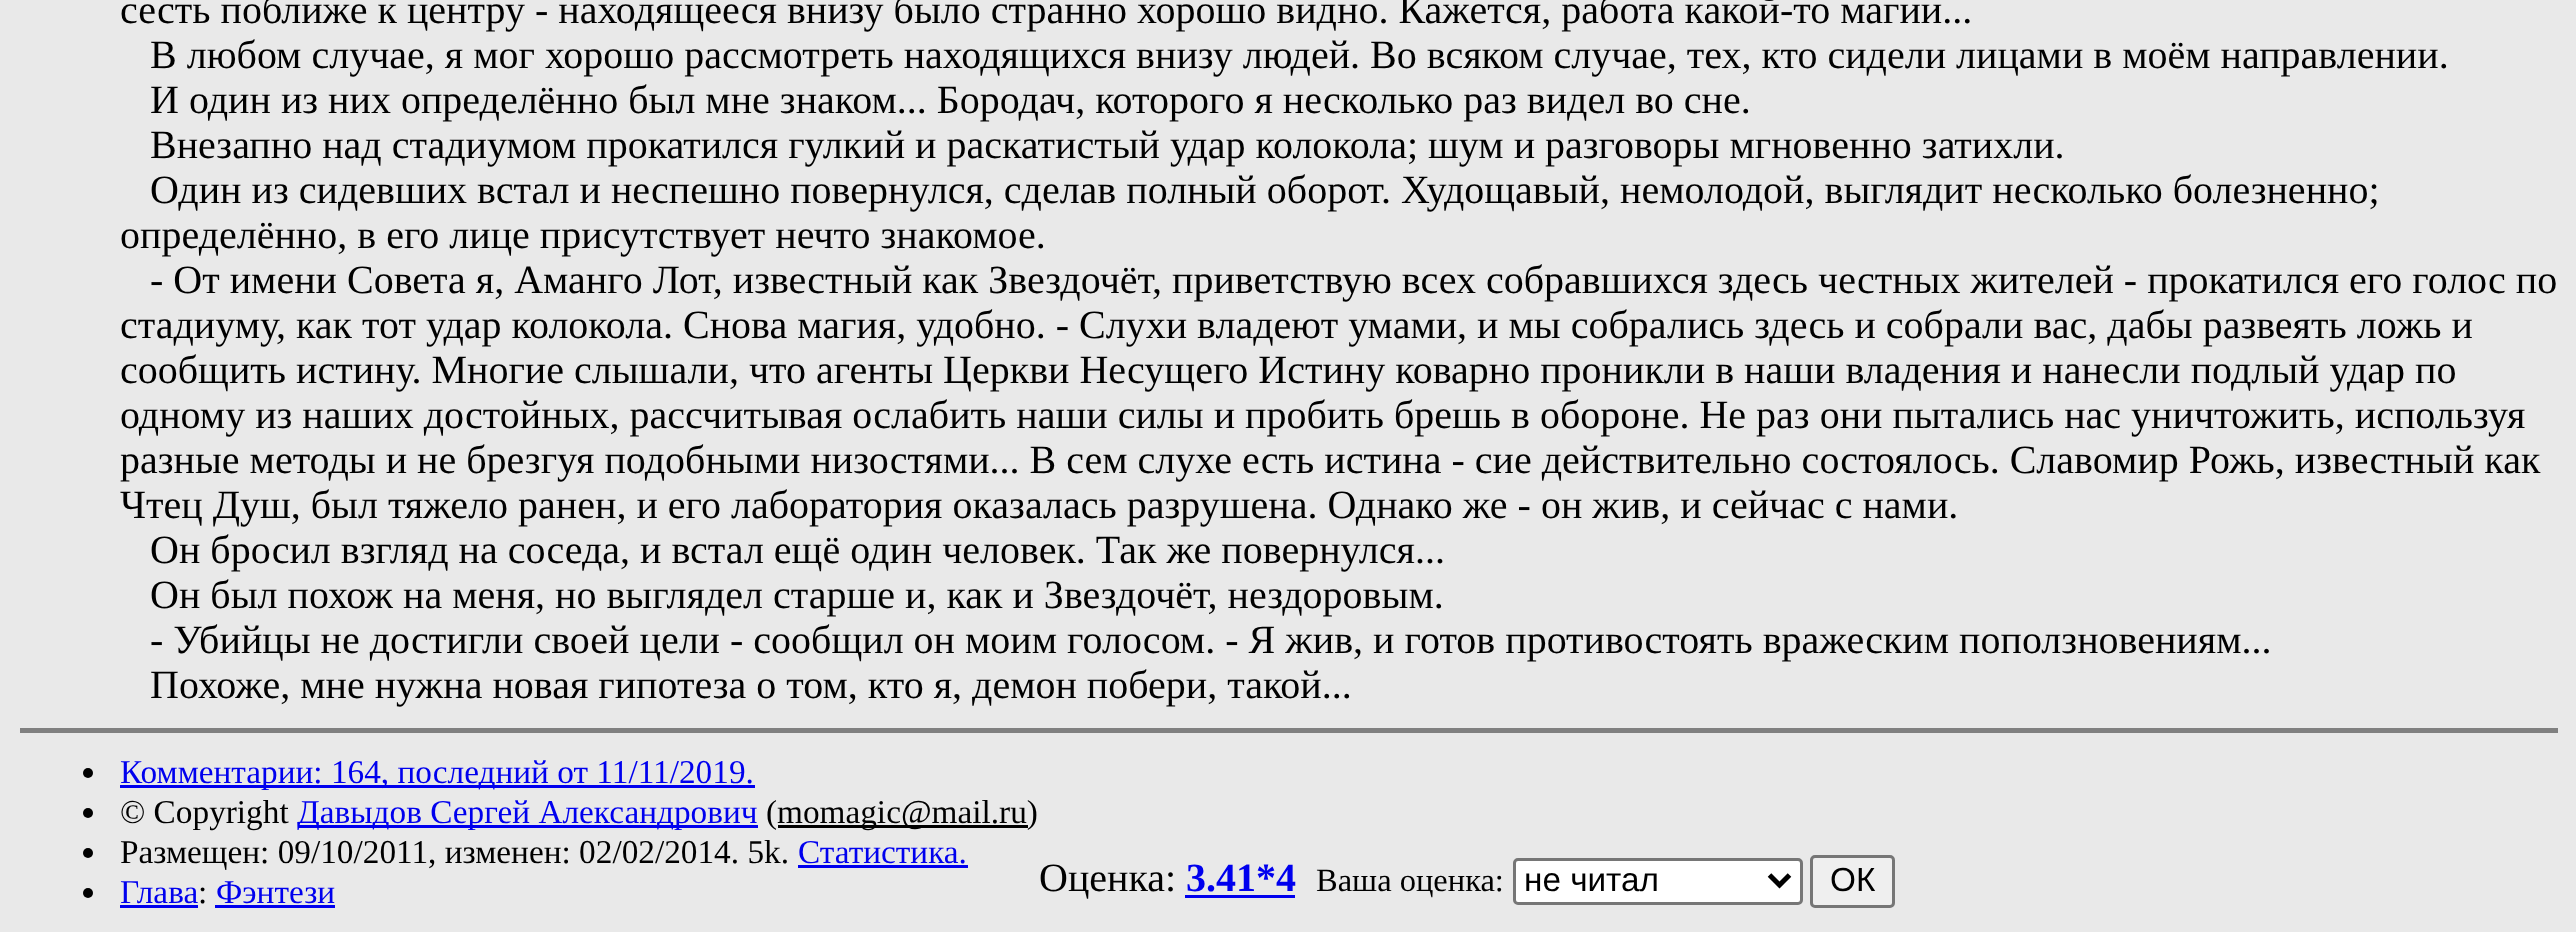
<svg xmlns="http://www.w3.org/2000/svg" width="2576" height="932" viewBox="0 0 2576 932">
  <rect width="100%" height="100%" fill="#e9e9e9"/>
  <text x="120" y="23" font-family="Liberation Serif" font-size="40" fill="#000000">сесть поближе к центру - находящееся внизу было странно хорошо видно. Кажется, работа какой-то магии...</text>
  <text x="150" y="68" font-family="Liberation Serif" font-size="40" fill="#000000">В любом случае, я мог хорошо рассмотреть находящихся внизу людей. Во всяком случае, тех, кто сидели лицами в моём направлении.</text>
  <text x="150" y="113" font-family="Liberation Serif" font-size="40" fill="#000000">И один из них определённо был мне знаком... Бородач, которого я несколько раз видел во сне.</text>
  <text x="150" y="158" font-family="Liberation Serif" font-size="40" fill="#000000">Внезапно над стадиумом прокатился гулкий и раскатистый удар колокола; шум и разговоры мгновенно затихли.</text>
  <text x="150" y="203" font-family="Liberation Serif" font-size="40" fill="#000000">Один из сидевших встал и неспешно повернулся, сделав полный оборот. Худощавый, немолодой, выглядит несколько болезненно;</text>
  <text x="120" y="248" font-family="Liberation Serif" font-size="40" fill="#000000">определённо, в его лице присутствует нечто знакомое.</text>
  <text x="150" y="293" font-family="Liberation Serif" font-size="40" fill="#000000">- От имени Совета я, Аманго Лот, известный как Звездочёт, приветствую всех собравшихся здесь честных жителей - прокатился его голос по</text>
  <text x="120" y="338" font-family="Liberation Serif" font-size="40" fill="#000000">стадиуму, как тот удар колокола. Снова магия, удобно. - Слухи владеют умами, и мы собрались здесь и собрали вас, дабы развеять ложь и</text>
  <text x="120" y="383" font-family="Liberation Serif" font-size="40" fill="#000000">сообщить истину. Многие слышали, что агенты Церкви Несущего Истину коварно проникли в наши владения и нанесли подлый удар по</text>
  <text x="120" y="428" font-family="Liberation Serif" font-size="40" fill="#000000">одному из наших достойных, рассчитывая ослабить наши силы и пробить брешь в обороне. Не раз они пытались нас уничтожить, используя</text>
  <text x="120" y="473" font-family="Liberation Serif" font-size="40" fill="#000000">разные методы и не брезгуя подобными низостями... В сем слухе есть истина - сие действительно состоялось. Славомир Рожь, известный как</text>
  <text x="120" y="518" font-family="Liberation Serif" font-size="40" fill="#000000">Чтец Душ, был тяжело ранен, и его лаборатория оказалась разрушена. Однако же - он жив, и сейчас с нами.</text>
  <text x="150" y="563" font-family="Liberation Serif" font-size="40" fill="#000000">Он бросил взгляд на соседа, и встал ещё один человек. Так же повернулся...</text>
  <text x="150" y="608" font-family="Liberation Serif" font-size="40" fill="#000000">Он был похож на меня, но выглядел старше и, как и Звездочёт, нездоровым.</text>
  <text x="150" y="653" font-family="Liberation Serif" font-size="40" fill="#000000">- Убийцы не достигли своей цели - сообщил он моим голосом. - Я жив, и готов противостоять вражеским поползновениям...</text>
  <text x="150" y="698" font-family="Liberation Serif" font-size="40" fill="#000000">Похоже, мне нужна новая гипотеза о том, кто я, демон побери, такой...</text>
  <rect x="20" y="728" width="2538" height="5" fill="#808080"/>
  <circle cx="88" cy="773" r="5" fill="#000000"/>
  <rect x="120" y="785" width="635" height="3" fill="#0000ee"/>
  <text x="120" y="783" font-family="Liberation Serif" font-size="33.3" fill="#0000ee">Комментарии: 164, последний от 11/11/2019.</text>
  <circle cx="88" cy="813" r="5" fill="#000000"/>
  <text x="120" y="823" font-family="Liberation Serif" font-size="33.3" fill="#000000">© Copyright</text>
  <rect x="298" y="825" width="460" height="3" fill="#0000ee"/>
  <text x="297" y="823" font-family="Liberation Serif" font-size="33.3" fill="#0000ee">Давыдов Сергей Александрович</text>
  <text x="766" y="823" font-family="Liberation Serif" font-size="33.3" fill="#000000">(</text>
  <rect x="778" y="825" width="250" height="3" fill="#000000"/>
  <text x="777" y="823" font-family="Liberation Serif" font-size="33.3" fill="#000000">momagic@mail.ru)</text>
  <circle cx="88" cy="853" r="5" fill="#000000"/>
  <text x="120" y="863" font-family="Liberation Serif" font-size="33.3" fill="#000000">Размещен: 09/10/2011, изменен: 02/02/2014. 5k.</text>
  <text x="798" y="863" font-family="Liberation Serif" font-size="33.3" fill="#0000ee">Статистика.</text>
  <rect x="798" y="865" width="170" height="3" fill="#0000ee"/>
  <circle cx="88" cy="893" r="5" fill="#000000"/>
  <text x="120" y="903" font-family="Liberation Serif" font-size="33.3" fill="#0000ee">Глава</text>
  <rect x="120" y="905" width="78" height="3" fill="#0000ee"/>
  <text x="198" y="903" font-family="Liberation Serif" font-size="33.3" fill="#000000">:</text>
  <text x="216" y="903" font-family="Liberation Serif" font-size="33.3" fill="#0000ee">Фэнтези</text>
  <rect x="215" y="905" width="120" height="3" fill="#0000ee"/>
  <text x="1039" y="891" font-family="Liberation Serif" font-size="40" fill="#000000">Оценка:</text>
  <text x="1186" y="891" font-family="Liberation Serif" font-size="40" font-weight="bold" fill="#0000ee">3.41*4</text>
  <rect x="1185" y="895" width="110" height="3" fill="#0000ee"/>
  <text x="1316" y="891" font-family="Liberation Serif" font-size="32.5" fill="#000000">Ваша оценка:</text>
  <rect x="1514.5" y="859.5" width="287" height="44" rx="3.5" fill="#ffffff" stroke="#767676" stroke-width="3"/>
  <path d="M1769.5 875L1779.5 885L1789.5 875" fill="none" stroke="#000000" stroke-width="5"/>
  <text x="1524" y="891" font-family="Liberation Sans" font-size="33.3" fill="#000000">не читал</text>
  <rect x="1811.5" y="856.5" width="82" height="50" rx="3.5" fill="#efefef" stroke="#767676" stroke-width="3"/>
  <text x="1830" y="891" font-family="Liberation Sans" font-size="33.3" fill="#000000">ОК</text>
</svg>
